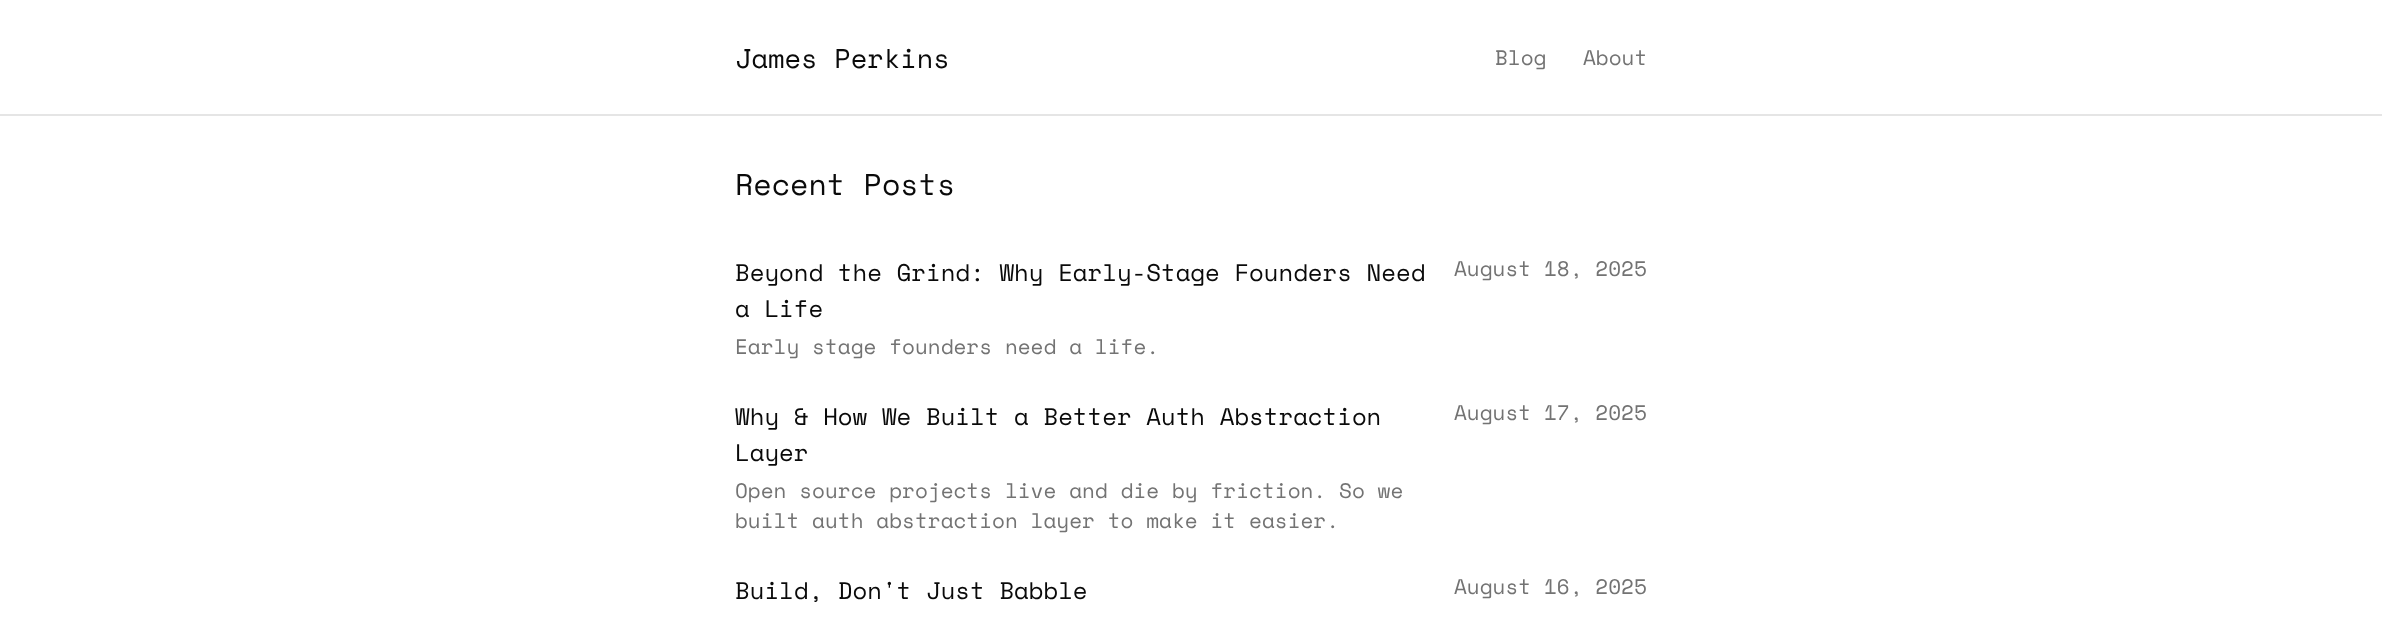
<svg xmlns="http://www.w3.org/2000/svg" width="2382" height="628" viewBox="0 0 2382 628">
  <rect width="100%" height="100%" fill="#ffffff"/>
  <rect x="0" y="114" width="2382" height="2" fill="#e5e5e5"/>
  <text x="735" y="68" font-family="Space Mono" font-size="27" fill="#0a0a0a">James Perkins</text>
  <text x="1495" y="65" font-family="Space Mono" font-size="21" fill="#737373">Blog</text>
  <text x="1583" y="65" font-family="Space Mono" font-size="21" fill="#737373">About</text>
  <text x="735" y="195" font-family="Space Mono" font-size="30" fill="#0a0a0a">Recent Posts</text>
  <text x="735" y="281" font-family="Space Mono" font-size="24" fill="#0a0a0a">Beyond the Grind: Why Early-Stage Founders Need</text>
  <text x="735" y="317" font-family="Space Mono" font-size="24" fill="#0a0a0a">a Life</text>
  <text x="735" y="354" font-family="Space Mono" font-size="21" fill="#737373">Early stage founders need a life.</text>
  <text x="1454" y="276" font-family="Space Mono" font-size="21" fill="#737373">August 18, 2025</text>
  <text x="735" y="425" font-family="Space Mono" font-size="24" fill="#0a0a0a">Why &amp; How We Built a Better Auth Abstraction</text>
  <text x="735" y="461" font-family="Space Mono" font-size="24" fill="#0a0a0a">Layer</text>
  <text x="735" y="498" font-family="Space Mono" font-size="21" fill="#737373">Open source projects live and die by friction. So we</text>
  <text x="735" y="528" font-family="Space Mono" font-size="21" fill="#737373">built auth abstraction layer to make it easier.</text>
  <text x="1454" y="420" font-family="Space Mono" font-size="21" fill="#737373">August 17, 2025</text>
  <text x="735" y="599" font-family="Space Mono" font-size="24" fill="#0a0a0a">Build, Don't Just Babble</text>
  <text x="1454" y="594" font-family="Space Mono" font-size="21" fill="#737373">August 16, 2025</text>
</svg>
